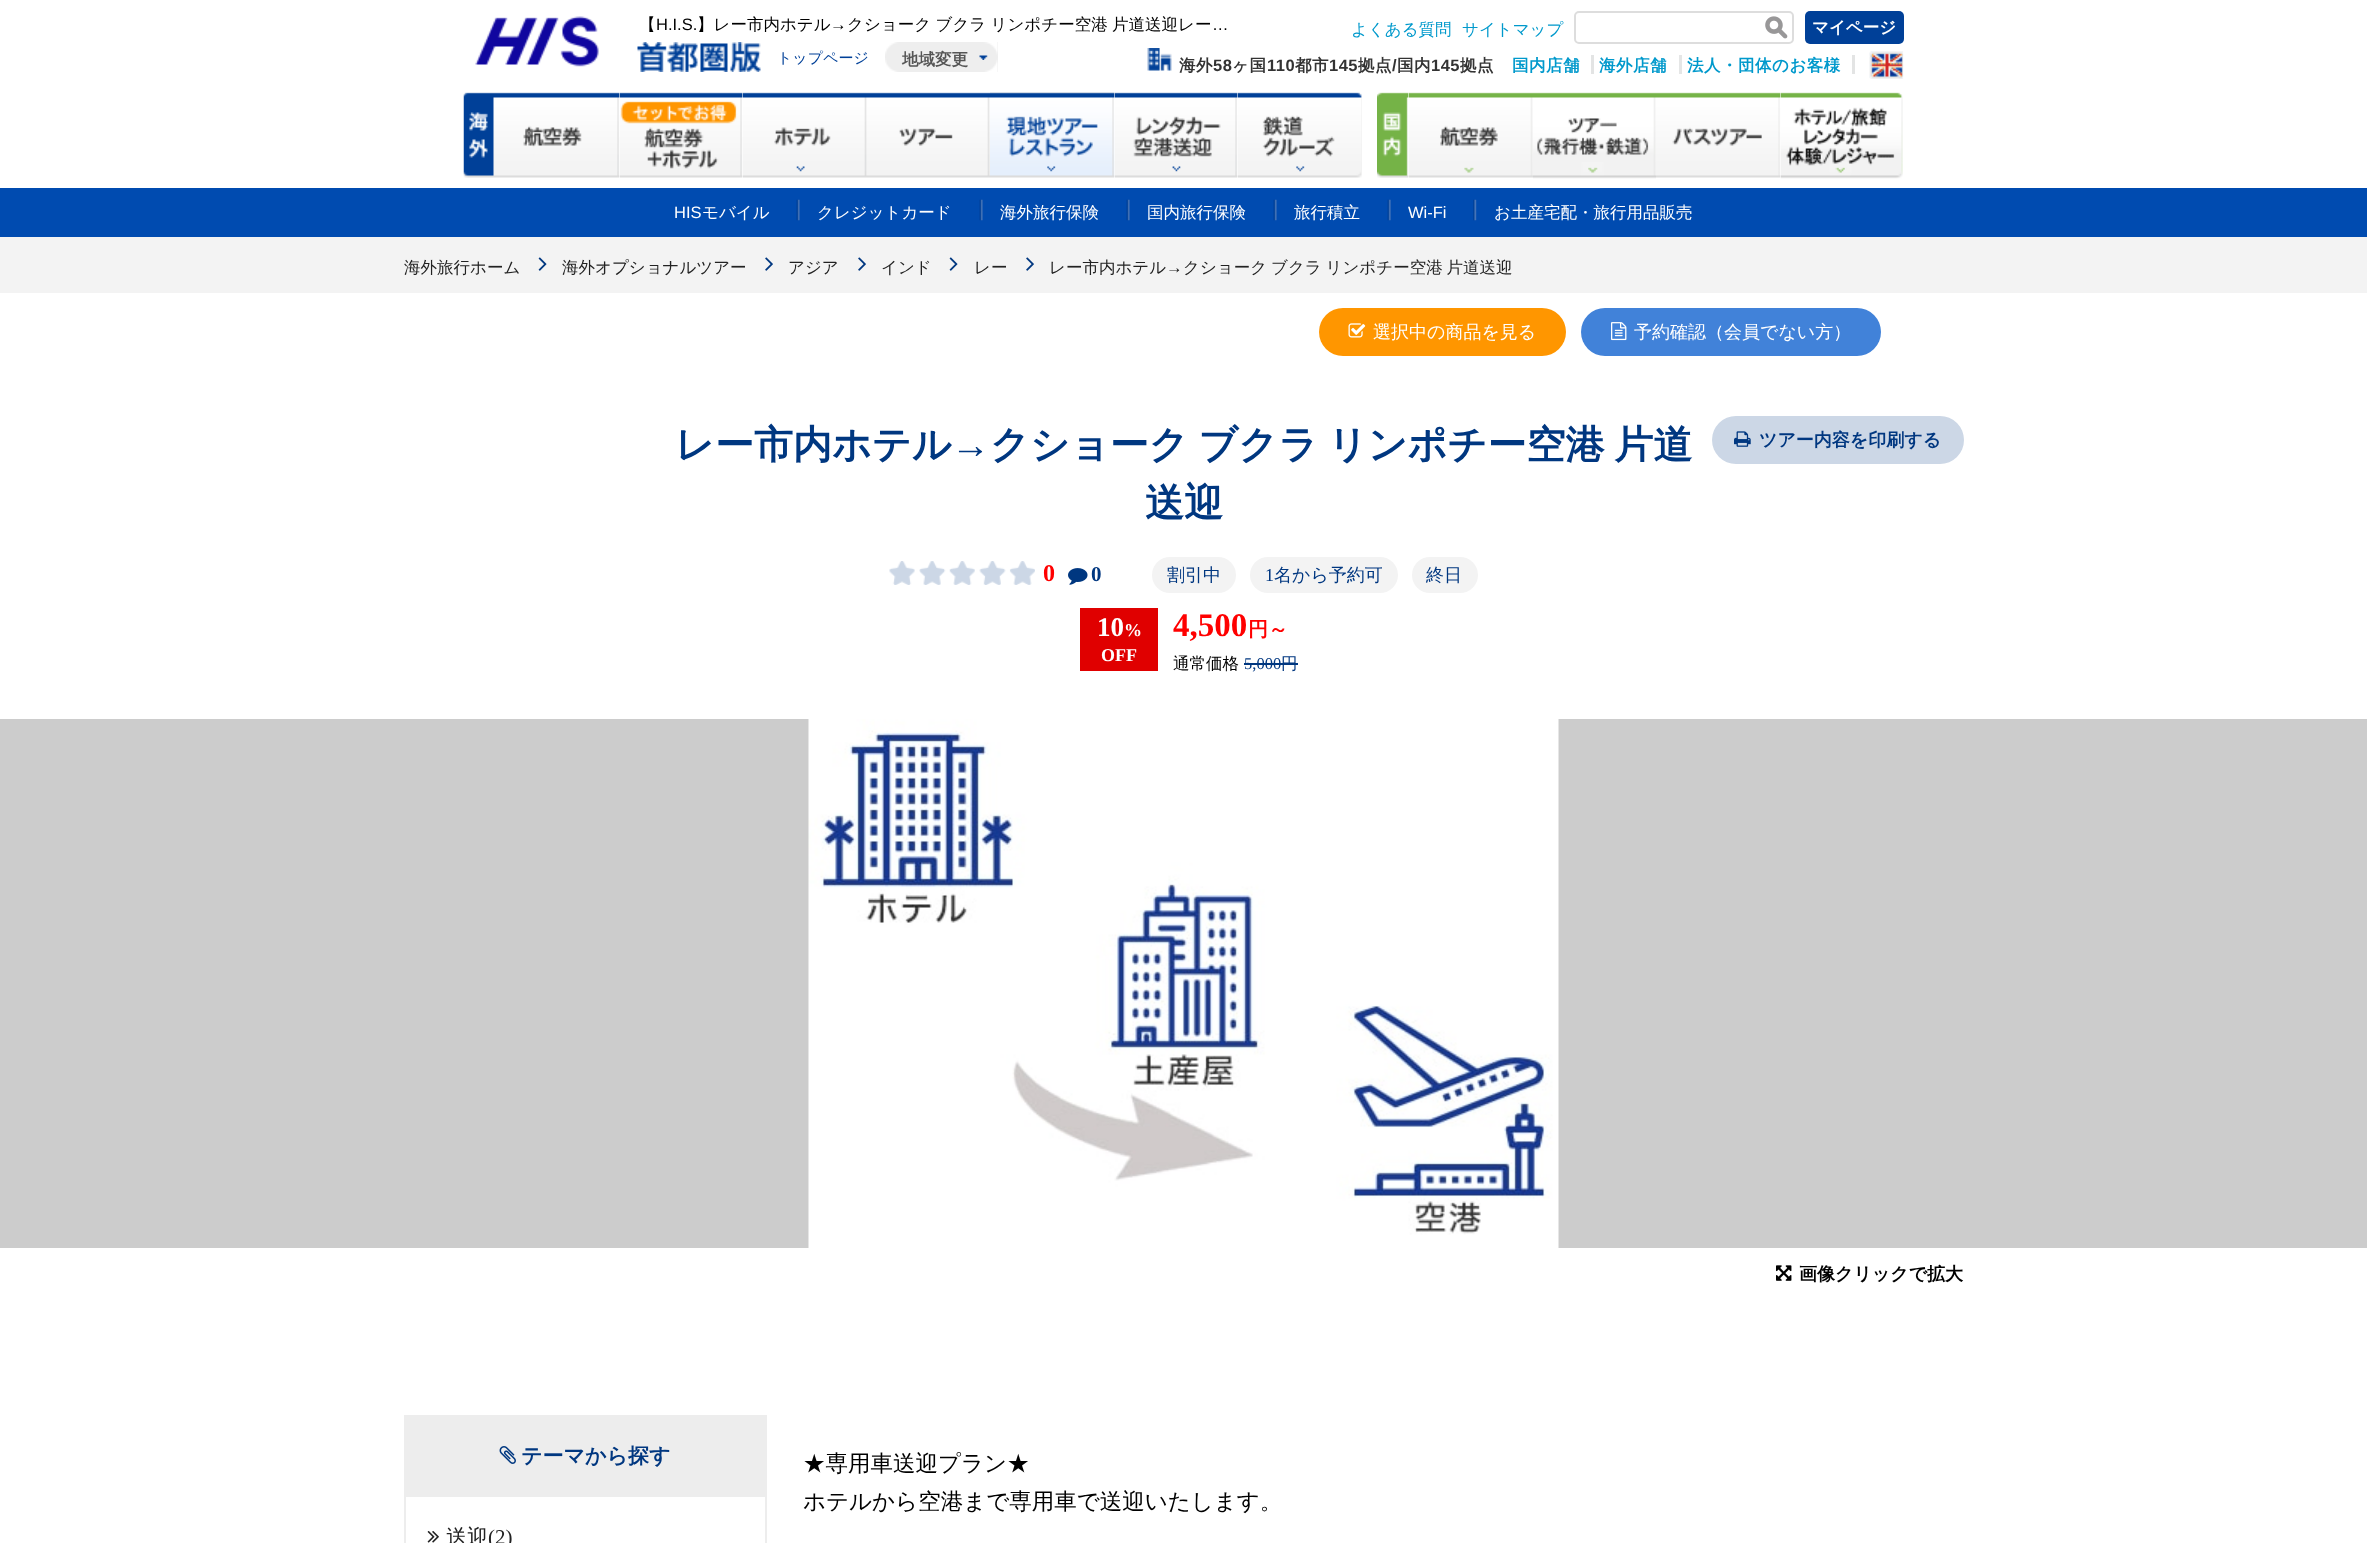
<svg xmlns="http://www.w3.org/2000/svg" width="2367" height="1543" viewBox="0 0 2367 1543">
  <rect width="100%" height="100%" fill="#ffffff"/>
  <text x="639" y="30" font-family="WenQuanYi Zen Hei" font-size="16.5" font-weight="500" fill="#000000">【</text>
  <text x="656" y="30" font-family="Liberation Sans" font-size="16.5" fill="#000000">H.I.S.</text>
  <text x="697" y="30" font-family="WenQuanYi Zen Hei" font-size="16.5" font-weight="500" fill="#000000">】レー市内ホテル</text>
  <text x="830" y="30" font-family="Liberation Sans" font-size="16.5" fill="#000000">→</text>
  <text x="847" y="30" word-spacing="-0.5" font-family="WenQuanYi Zen Hei" font-size="16.5" font-weight="500" fill="#000000">クショーク ブクラ リンポチー空港 片道送迎レー</text>
  <text x="1212" y="30" font-family="Liberation Sans" font-size="16.5" fill="#000000">…</text>
  <text x="1351" y="35" font-family="WenQuanYi Zen Hei" font-size="16.5" font-weight="500" fill="#0099cc">よくある質問</text>
  <text x="1462" y="35" font-family="WenQuanYi Zen Hei" font-size="16.5" font-weight="500" fill="#0099cc">サイトマップ</text>
  <rect x="1575" y="12" width="218" height="31" rx="4" fill="none" stroke="#dddddd" stroke-width="2"/>
  <image x="1765" y="16" width="23" height="23" href="img1.png"/>
  <rect x="1805" y="11" width="99" height="33" rx="5" fill="#004098"/>
  <text x="1812" y="33" font-family="WenQuanYi Zen Hei" font-size="16.5" font-weight="bold" fill="#ffffff">マイページ</text>
  <image x="1147" y="48" width="25" height="23" href="img2.png"/>
  <text x="1179" y="71" font-family="WenQuanYi Zen Hei" font-size="16.5" font-weight="bold" letter-spacing="0.5" fill="#333333">海外</text>
  <text x="1213" y="71" font-family="Liberation Sans" font-size="16.5" font-weight="bold" letter-spacing="0.5" fill="#333333">58</text>
  <text x="1232" y="71" font-family="WenQuanYi Zen Hei" font-size="16.5" font-weight="bold" letter-spacing="0.5" fill="#333333">ヶ国</text>
  <text x="1267" y="71" font-family="Liberation Sans" font-size="16.5" font-weight="bold" letter-spacing="0.5" fill="#333333">110</text>
  <text x="1295" y="71" font-family="WenQuanYi Zen Hei" font-size="16.5" font-weight="bold" letter-spacing="0.5" fill="#333333">都市</text>
  <text x="1329" y="71" font-family="Liberation Sans" font-size="16.5" font-weight="bold" letter-spacing="0.5" fill="#333333">145</text>
  <text x="1358" y="71" font-family="WenQuanYi Zen Hei" font-size="16.5" font-weight="bold" letter-spacing="0.5" fill="#333333">拠点</text>
  <text x="1392" y="71" font-family="Liberation Sans" font-size="16.5" font-weight="bold" letter-spacing="0.5" fill="#333333">/</text>
  <text x="1397" y="71" font-family="WenQuanYi Zen Hei" font-size="16.5" font-weight="bold" letter-spacing="0.5" fill="#333333">国内</text>
  <text x="1431" y="71" font-family="Liberation Sans" font-size="16.5" font-weight="bold" letter-spacing="0.5" fill="#333333">145</text>
  <text x="1460" y="71" font-family="WenQuanYi Zen Hei" font-size="16.5" font-weight="bold" letter-spacing="0.5" fill="#333333">拠点</text>
  <text x="1512" y="71" font-family="WenQuanYi Zen Hei" font-size="16.5" font-weight="bold" letter-spacing="0.5" fill="#0099cc">国内店舗</text>
  <rect x="1591" y="55" width="3" height="19" fill="#e3e4e4"/>
  <text x="1599" y="71" font-family="WenQuanYi Zen Hei" font-size="16.5" font-weight="bold" letter-spacing="0.5" fill="#0099cc">海外店舗</text>
  <rect x="1679" y="55" width="3" height="19" fill="#e5e6e6"/>
  <text x="1687" y="71" font-family="WenQuanYi Zen Hei" font-size="16.5" font-weight="bold" letter-spacing="0.5" fill="#0099cc">法人・団体のお客様</text>
  <rect x="1852" y="55" width="3" height="19" fill="#e3e4e4"/>
  <image x="1869" y="51" width="35" height="28" href="img3.png"/>
  <image x="475" y="16" width="124" height="51" href="img4.png"/>
  <image x="637" y="42" width="124" height="30" href="img5.png"/>
  <text x="777" y="63" font-family="WenQuanYi Zen Hei" font-size="15" font-weight="500" fill="#004098">トップページ</text>
  <rect x="997" y="42" width="1" height="30" fill="#eeeeee"/>
  <image x="885" y="60" width="113" height="12" href="img6.png"/>
  <image x="885" y="42" width="113" height="18" href="img7.png"/>
  <text x="902" y="65" font-family="WenQuanYi Zen Hei" font-size="16.5" font-weight="bold" fill="#555555">地域変更</text>
  <image x="463" y="92" width="32" height="86" href="img8.png"/>
  <image x="495" y="92" width="125" height="86" href="img9.png"/>
  <image x="619" y="92" width="124" height="86" href="img10.png"/>
  <image x="742" y="92" width="125" height="86" href="img11.png"/>
  <image x="867" y="92" width="123" height="86" href="img12.png"/>
  <image x="990" y="92" width="125" height="86" href="img13.png"/>
  <image x="1114" y="92" width="124" height="86" href="img14.png"/>
  <image x="1237" y="92" width="125" height="86" href="img15.png"/>
  <image x="1377" y="92" width="32" height="86" href="img16.png"/>
  <image x="1408" y="92" width="125" height="86" href="img17.png"/>
  <image x="1533" y="92" width="123" height="87" href="img18.png"/>
  <image x="1656" y="92" width="125" height="86" href="img19.png"/>
  <image x="1780" y="92" width="123" height="87" href="img20.png"/>
  <rect x="0" y="188" width="2367" height="49" fill="#004bb0"/>
  <text x="674" y="218" font-family="Liberation Sans" font-size="16.5" fill="#ffffff">HIS</text>
  <text x="702" y="218" font-family="WenQuanYi Zen Hei" font-size="16.5" font-weight="500" fill="#ffffff">モバイル</text>
  <image x="796" y="199" width="4" height="22" href="img21.png"/>
  <text x="817" y="218" font-family="WenQuanYi Zen Hei" font-size="16.5" font-weight="500" fill="#ffffff">クレジットカード</text>
  <image x="979" y="199" width="4" height="22" href="img21.png"/>
  <text x="1000" y="218" font-family="WenQuanYi Zen Hei" font-size="16.5" font-weight="500" fill="#ffffff">海外旅行保険</text>
  <image x="1126" y="199" width="4" height="22" href="img21.png"/>
  <text x="1147" y="218" font-family="WenQuanYi Zen Hei" font-size="16.5" font-weight="500" fill="#ffffff">国内旅行保険</text>
  <image x="1273" y="199" width="4" height="22" href="img21.png"/>
  <text x="1294" y="218" font-family="WenQuanYi Zen Hei" font-size="16.5" font-weight="500" fill="#ffffff">旅行積立</text>
  <image x="1387" y="199" width="4" height="22" href="img22.png"/>
  <text x="1408" y="218" font-family="Liberation Sans" font-size="16.5" fill="#ffffff">Wi-Fi</text>
  <image x="1473" y="199" width="4" height="22" href="img23.png"/>
  <text x="1494" y="218" font-family="WenQuanYi Zen Hei" font-size="16.5" font-weight="500" fill="#ffffff">お土産宅配・旅行用品販売</text>
  <rect x="0" y="237" width="2367" height="56" fill="#f3f3f3"/>
  <text x="404" y="273" font-family="WenQuanYi Zen Hei" font-size="16.5" font-weight="500" fill="#222222">海外旅行ホーム</text>
  <image x="538" y="257" width="9" height="14" href="img24.png"/>
  <text x="562" y="273" font-family="WenQuanYi Zen Hei" font-size="16.5" font-weight="500" fill="#222222">海外オプショナルツアー</text>
  <image x="765" y="257" width="8" height="14" href="img25.png"/>
  <text x="788" y="273" font-family="WenQuanYi Zen Hei" font-size="16.5" font-weight="500" fill="#222222">アジア</text>
  <image x="858" y="257" width="8" height="14" href="img25.png"/>
  <text x="881" y="273" font-family="WenQuanYi Zen Hei" font-size="16.5" font-weight="500" fill="#222222">インド</text>
  <image x="949" y="257" width="9" height="14" href="img24.png"/>
  <text x="974" y="273" font-family="WenQuanYi Zen Hei" font-size="16.5" font-weight="500" fill="#222222">レー</text>
  <image x="1026" y="257" width="8" height="14" href="img25.png"/>
  <text x="1049" y="273" font-family="WenQuanYi Zen Hei" font-size="16.5" font-weight="500" fill="#222222">レー市内ホテル</text>
  <text x="1166" y="273" font-family="Liberation Serif" font-size="16.5" fill="#222222">→</text>
  <text x="1183" y="273" word-spacing="-1" font-family="WenQuanYi Zen Hei" font-size="16.5" font-weight="500" fill="#222222">クショーク ブクラ リンポチー空港 片道送迎</text>
  <rect x="1319" y="308" width="247" height="48" rx="24" fill="#ff9600"/>
  <image x="1348" y="323" width="18" height="15" href="img26.png"/>
  <text x="1373" y="338" font-family="WenQuanYi Zen Hei" font-size="18" font-weight="500" fill="#ffffff">選択中の商品を見る</text>
  <rect x="1581" y="308" width="300" height="48" rx="24" fill="#4182d9"/>
  <image x="1611" y="322" width="16" height="19" href="img27.png"/>
  <text x="1634" y="338" font-family="WenQuanYi Zen Hei" font-size="18" font-weight="500" fill="#ffffff">予約確認（会員でない方）</text>
  <text x="675" y="458" font-family="WenQuanYi Zen Hei" font-size="39" font-weight="bold" fill="#003780">レー市内ホテル</text>
  <text x="951" y="458" font-family="Liberation Serif" font-size="39" font-weight="bold" fill="#003780">→</text>
  <text x="990" y="458" word-spacing="-2" font-family="WenQuanYi Zen Hei" font-size="39" font-weight="bold" fill="#003780">クショーク ブクラ リンポチー空港 片道</text>
  <text x="1145" y="516" font-family="WenQuanYi Zen Hei" font-size="39" font-weight="bold" fill="#003780">送迎</text>
  <rect x="1712" y="416" width="252" height="48" rx="24" fill="#ccd7e6"/>
  <image x="1734" y="431" width="17" height="16" href="img28.png"/>
  <text x="1759" y="446" font-family="WenQuanYi Zen Hei" font-size="18" font-weight="bold" fill="#003780">ツアー内容を印刷する</text>
  <image x="889" y="561" width="146" height="24" href="img29.png"/>
  <text x="1043" y="581" font-family="Liberation Serif" font-size="24" font-weight="bold" fill="#ff0000">0</text>
  <image x="1068" y="568" width="20" height="17" href="img30.png"/>
  <text x="1091" y="581" font-family="Liberation Serif" font-size="21" font-weight="bold" fill="#003780">0</text>
  <rect x="1152" y="557" width="84" height="36" rx="18" fill="#f3f3f3"/>
  <text x="1167" y="581" font-family="WenQuanYi Zen Hei" font-size="18" font-weight="500" fill="#003780">割引中</text>
  <rect x="1250" y="557" width="148" height="36" rx="18" fill="#f3f3f3"/>
  <text x="1265" y="581" font-family="Liberation Serif" font-size="18" fill="#003780">1</text>
  <text x="1274" y="581" font-family="WenQuanYi Zen Hei" font-size="18" font-weight="500" fill="#003780">名から予約可</text>
  <rect x="1412" y="557" width="66" height="36" rx="18" fill="#f3f3f3"/>
  <text x="1426" y="581" font-family="WenQuanYi Zen Hei" font-size="18" font-weight="500" fill="#003780">終日</text>
  <rect x="1080" y="608" width="78" height="63" fill="#e00000"/>
  <text x="1097" y="636" font-family="Liberation Serif" font-size="27" font-weight="bold" fill="#ffffff">10</text>
  <text x="1124" y="636" font-family="Liberation Serif" font-size="18" font-weight="bold" fill="#ffffff">%</text>
  <text x="1101" y="661" font-family="Liberation Serif" font-size="18" font-weight="bold" fill="#ffffff">OFF</text>
  <text x="1173" y="636" font-family="Liberation Serif" font-size="33" font-weight="bold" fill="#ff0000">4,500</text>
  <text x="1248" y="636" font-family="WenQuanYi Zen Hei" font-size="20" font-weight="bold" fill="#ff0000">円～</text>
  <text x="1173" y="669" font-family="WenQuanYi Zen Hei" font-size="16.5" font-weight="500" fill="#000000">通常価格</text>
  <text x="1244" y="669" font-family="Liberation Serif" font-size="16.5" fill="#003780">5,000</text>
  <text x="1281" y="669" font-family="WenQuanYi Zen Hei" font-size="16.5" font-weight="500" fill="#003780">円</text>
  <rect x="1244" y="663" width="54" height="2" fill="#003780"/>
  <rect x="0" y="719" width="2367" height="529" fill="#cccccc"/>
  <image x="808" y="719" width="751" height="529" href="img31.png"/>
  <image x="1776" y="1265" width="16" height="16" href="img32.png"/>
  <text x="1799" y="1280" font-family="WenQuanYi Zen Hei" font-size="18" font-weight="bold" fill="#000000">画像クリックで拡大</text>
  <rect x="405" y="1416" width="361" height="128" fill="none" stroke="#ededed" stroke-width="2"/>
  <rect x="406" y="1417" width="359" height="80" fill="#ededed"/>
  <image x="499" y="1446" width="17" height="18" href="img33.png"/>
  <text x="521" y="1463" font-family="WenQuanYi Zen Hei" font-size="21" font-weight="bold" fill="#003780">テーマから探す</text>
  <image x="427" y="1531" width="12" height="12" href="img34.png"/>
  <text x="446" y="1544" font-family="WenQuanYi Zen Hei" font-size="21" font-weight="500" fill="#222222">送迎</text>
  <text x="488" y="1544" font-family="Liberation Serif" font-size="21" fill="#222222">(2)</text>
  <text x="803" y="1471" font-family="WenQuanYi Zen Hei" font-size="22.5" font-weight="500" fill="#000000">★専用車送迎プラン★</text>
  <text x="803" y="1509" font-family="WenQuanYi Zen Hei" font-size="22.5" font-weight="500" fill="#000000">ホテルから空港まで専用車で送迎いたします。</text>
</svg>
